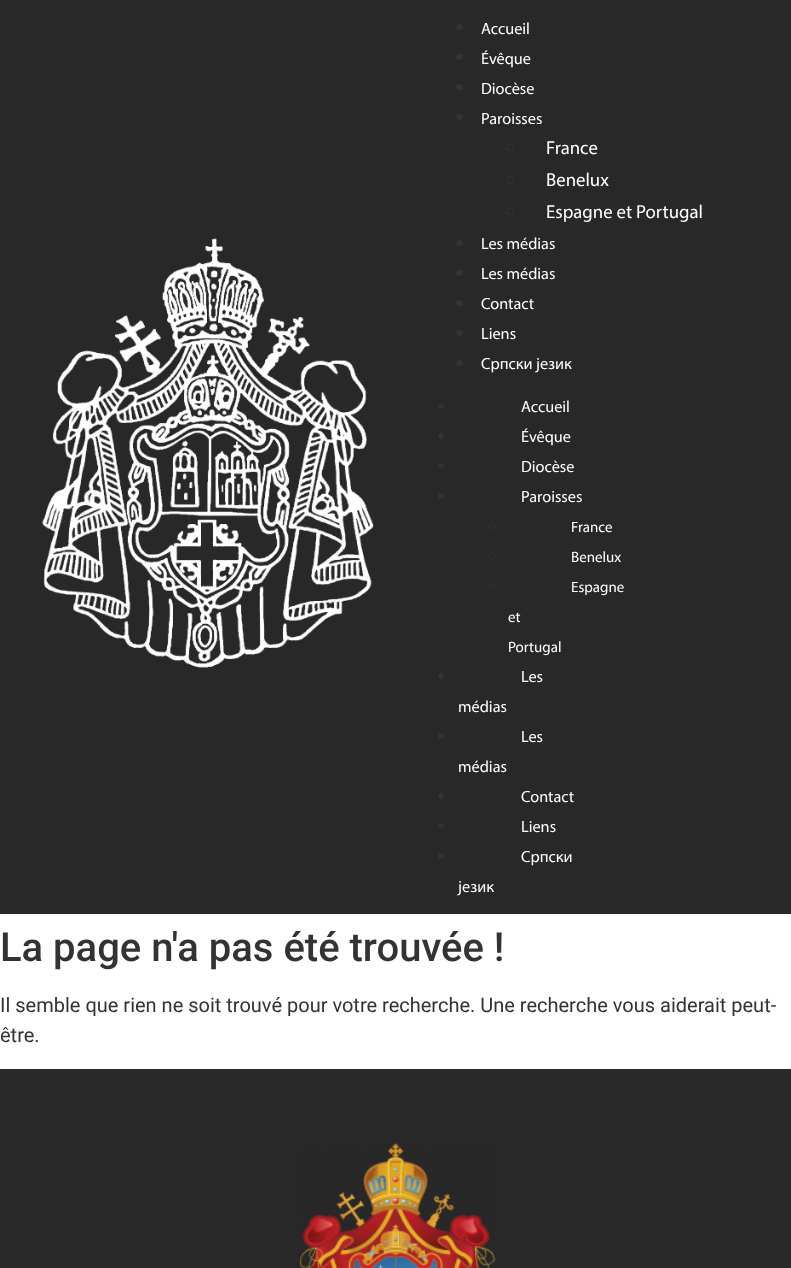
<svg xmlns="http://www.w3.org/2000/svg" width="791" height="1268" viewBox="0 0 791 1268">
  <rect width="100%" height="100%" fill="#ffffff"/>
  <rect x="0" y="0" width="791" height="914" fill="#282828"/>
  <image x="42" y="238" width="332" height="430" href="img1.png"/>
  <rect x="456" y="24" width="7" height="6" rx="3" fill="#333333"/>
  <text x="481" y="34" font-family="Myriad" font-size="16.25" fill="#ffffff">Accueil</text>
  <rect x="456" y="54" width="7" height="6" rx="3" fill="#333333"/>
  <text x="481" y="64" font-family="Myriad" font-size="16.25" fill="#ffffff">Évêque</text>
  <rect x="456" y="84" width="7" height="6" rx="3" fill="#333333"/>
  <text x="481" y="94" font-family="Myriad" font-size="16.25" fill="#ffffff">Diocèse</text>
  <rect x="456" y="114" width="7" height="6" rx="3" fill="#333333"/>
  <text x="481" y="124" font-family="Myriad" font-size="16.25" fill="#ffffff">Paroisses</text>
  <rect x="506.5" y="144.5" width="7" height="6" rx="3" fill="none" stroke="#333333"/>
  <text x="546" y="154" font-family="Myriad" font-size="18.75" fill="#ffffff">France</text>
  <rect x="531" y="124" width="9" height="1" fill="#282828"/>
  <circle cx="510" cy="180" r="3.5" fill="none" stroke="#333333"/>
  <text x="546" y="186" font-family="Myriad" font-size="18.75" fill="#ffffff">Benelux</text>
  <rect x="506.5" y="208.5" width="7" height="6" rx="3" fill="none" stroke="#333333"/>
  <text x="546" y="218" font-family="Myriad" font-size="18.75" fill="#ffffff">Espagne et Portugal</text>
  <rect x="456" y="240" width="7" height="6" rx="3" fill="#333333"/>
  <text x="481" y="249" font-family="Myriad" font-size="16.25" fill="#ffffff">Les médias</text>
  <rect x="456" y="270" width="7" height="6" rx="3" fill="#333333"/>
  <text x="481" y="279" font-family="Myriad" font-size="16.25" fill="#ffffff">Les médias</text>
  <rect x="456" y="300" width="7" height="6" rx="3" fill="#333333"/>
  <text x="481" y="309" font-family="Myriad" font-size="16.25" fill="#ffffff">Contact</text>
  <rect x="456" y="330" width="7" height="6" rx="3" fill="#333333"/>
  <text x="481" y="339" font-family="Myriad" font-size="16.25" fill="#ffffff">Liens</text>
  <rect x="456" y="360" width="7" height="6" rx="3" fill="#333333"/>
  <text x="481" y="369" font-family="Myriad" font-size="16.25" fill="#ffffff">Српски језик</text>
  <circle cx="441" cy="406" r="3" fill="#333333"/>
  <text x="521" y="412" font-family="Myriad" font-size="16.25" fill="#ffffff">Accueil</text>
  <circle cx="441" cy="436" r="3" fill="#333333"/>
  <text x="521" y="442" font-family="Myriad" font-size="16.25" fill="#ffffff">Évêque</text>
  <circle cx="441" cy="466" r="3" fill="#333333"/>
  <text x="521" y="472" font-family="Myriad" font-size="16.25" fill="#ffffff">Diocèse</text>
  <circle cx="441" cy="496" r="3" fill="#333333"/>
  <text x="521" y="502" font-family="Myriad" font-size="16.25" fill="#ffffff">Paroisses</text>
  <circle cx="491.5" cy="526.5" r="3" fill="none" stroke="#333333"/>
  <text x="571" y="532" font-family="Myriad" font-size="15" fill="#ffffff">France</text>
  <circle cx="491.5" cy="556.5" r="3" fill="none" stroke="#333333"/>
  <text x="571" y="562" font-family="Myriad" font-size="15" fill="#ffffff">Benelux</text>
  <circle cx="491.5" cy="586.5" r="3" fill="none" stroke="#333333"/>
  <text x="571" y="592" font-family="Myriad" font-size="15" fill="#ffffff">Espagne</text>
  <text x="508" y="622" font-family="Myriad" font-size="15" fill="#ffffff">et</text>
  <text x="508" y="652" font-family="Myriad" font-size="15" fill="#ffffff">Portugal</text>
  <circle cx="441" cy="676" r="3" fill="#333333"/>
  <text x="521" y="682" font-family="Myriad" font-size="16.25" fill="#ffffff">Les</text>
  <text x="458" y="712" font-family="Myriad" font-size="16.25" fill="#ffffff">médias</text>
  <circle cx="441" cy="736" r="3" fill="#333333"/>
  <text x="521" y="742" font-family="Myriad" font-size="16.25" fill="#ffffff">Les</text>
  <text x="458" y="772" font-family="Myriad" font-size="16.25" fill="#ffffff">médias</text>
  <circle cx="441" cy="796" r="3" fill="#333333"/>
  <text x="521" y="802" font-family="Myriad" font-size="16.25" fill="#ffffff">Contact</text>
  <circle cx="441" cy="826" r="3" fill="#333333"/>
  <text x="521" y="832" font-family="Myriad" font-size="16.25" fill="#ffffff">Liens</text>
  <circle cx="441" cy="856" r="3" fill="#333333"/>
  <text x="521" y="862" font-family="Myriad" font-size="16.25" fill="#ffffff">Српски</text>
  <text x="458" y="892" font-family="Myriad" font-size="16.25" fill="#ffffff">језик</text>
  <text x="0" y="961" font-family="Roboto" font-size="40" font-weight="500" fill="#333333">La page n'a pas été trouvée !</text>
  <text x="0" y="1012" font-family="Roboto" font-size="20" fill="#333333">Il semble que rien ne soit trouvé pour votre recherche. Une recherche vous aiderait peut-</text>
  <text x="0" y="1042" font-family="Roboto" font-size="20" fill="#333333">être.</text>
  <rect x="0" y="1069" width="791" height="199" fill="#282828"/>
  <image x="299" y="1143" width="197" height="125" href="img2.png"/>
</svg>
